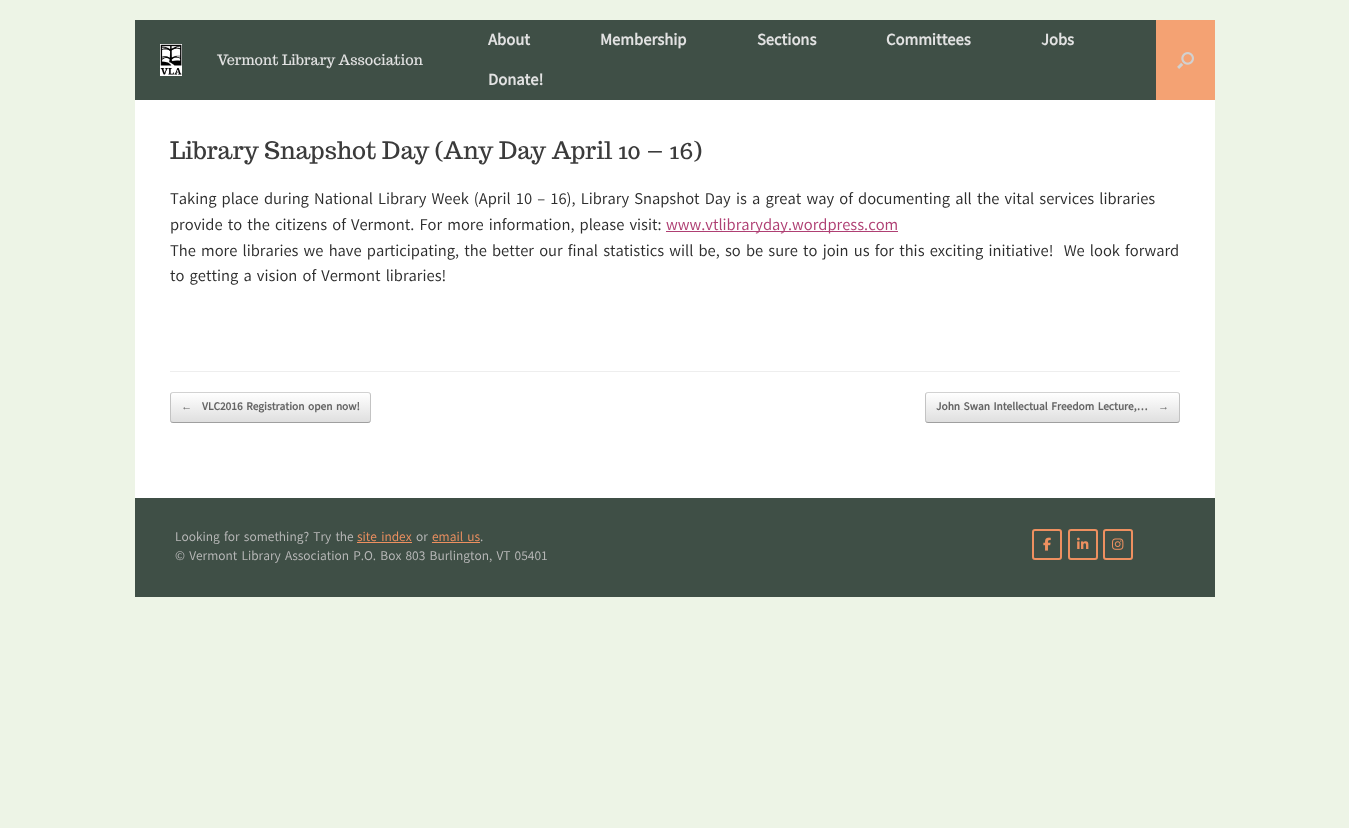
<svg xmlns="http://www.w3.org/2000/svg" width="1349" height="828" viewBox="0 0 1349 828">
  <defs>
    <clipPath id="clip1"><rect x="170" y="392" width="201" height="31" rx="3"/></clipPath>
    <linearGradient id="g1" gradientUnits="userSpaceOnUse" x1="171" y1="422" x2="171" y2="393"><stop offset="0" stop-color="#dfdfdf"/><stop offset="1" stop-color="#ffffff"/></linearGradient>
    <clipPath id="clip2"><rect x="925" y="392" width="255" height="31" rx="3"/></clipPath>
    <linearGradient id="g2" gradientUnits="userSpaceOnUse" x1="926" y1="422" x2="926" y2="393"><stop offset="0" stop-color="#dfdfdf"/><stop offset="1" stop-color="#ffffff"/></linearGradient>
  </defs>
  <rect width="100%" height="100%" fill="#edf4e6"/>
  <rect x="135" y="20" width="1021" height="80" fill="#3f4f46"/>
  <image x="160" y="44" width="22" height="32" href="img1.png"/>
  <text x="217" y="65" font-family="Trocchi" font-size="14.4" fill="#e2e2e2">Vermont Library Association</text>
  <text x="488" y="45" font-family="Akatab" font-size="16" font-weight="bold" fill="#e2e2e2">About</text>
  <text x="600" y="45" font-family="Akatab" font-size="16" font-weight="bold" fill="#e2e2e2">Membership</text>
  <text x="757" y="45" font-family="Akatab" font-size="16" font-weight="bold" fill="#e2e2e2">Sections</text>
  <text x="886" y="45" font-family="Akatab" font-size="16" font-weight="bold" fill="#e2e2e2">Committees</text>
  <text x="1041" y="45" font-family="Akatab" font-size="16" font-weight="bold" fill="#e2e2e2">Jobs</text>
  <text x="488" y="85" font-family="Akatab" font-size="16" font-weight="bold" fill="#e2e2e2">Donate!</text>
  <rect x="1156" y="20" width="59" height="80" fill="#f4a273"/>
  <image x="1177" y="52" width="17" height="17" href="img2.png"/>
  <rect x="135" y="100" width="1080" height="398" fill="#ffffff"/>
  <rect x="170" y="371" width="1010" height="1" fill="#eeeeee"/>
  <text x="170" y="159" font-family="Trocchi" font-size="24" fill="#3b3b3b">Library Snapshot Day (Any Day April 10 – 16)</text>
  <text x="170" y="204" font-family="Akatab" font-size="16" fill="#2d2d2d">Taking place during National Library Week (April 10 – 16), Library Snapshot Day is a great way of documenting all the vital services libraries</text>
  <text x="170" y="230" font-family="Akatab" font-size="16" fill="#2d2d2d">provide to the citizens of Vermont. For more information, please visit:</text>
  <rect x="666" y="231" width="232" height="1" fill="#af3f73"/>
  <text x="666" y="230" font-family="Akatab" font-size="16" fill="#af3f73">www.vtlibraryday.wordpress.com</text>
  <text x="170" y="256" font-family="Akatab" font-size="16" fill="#2d2d2d" xml:space="preserve">The more libraries we have participating, the better our final statistics will be, so be sure to join us for this exciting initiative!  We look forward</text>
  <text x="170" y="281" font-family="Akatab" font-size="16" fill="#2d2d2d">to getting a vision of Vermont libraries!</text>
  <g clip-path="url(#clip1)">
    <rect x="170" y="393" width="201" height="29" fill="url(#g1)"/>
  </g>
  <path d="M171 393L173 392.5H368L370 393" fill="none" stroke="#d2d2d2"/>
  <path d="M370 393C370 393.5 370.5 394.5 370.5 395V420C370.5 420.5 370 421.5 370 422" fill="none" stroke="#c3c3c3"/>
  <path d="M370 422L368 422.5H173L171 422" fill="none" stroke="#9f9f9f"/>
  <path d="M171 422C171 421.5 170.5 420.5 170.5 420V395C170.5 394.5 171 393.5 171 393" fill="none" stroke="#c3c3c3"/>
  <text x="181" y="410" font-family="Liberation Serif" font-size="11" font-weight="bold" fill="#646464">←</text>
  <text x="202" y="410" font-family="Akatab" font-size="11" font-weight="bold" fill="#646464">VLC2016 Registration open now!</text>
  <g clip-path="url(#clip2)">
    <rect x="925" y="393" width="255" height="29" fill="url(#g2)"/>
  </g>
  <path d="M926 393L928 392.5H1177L1179 393" fill="none" stroke="#d2d2d2"/>
  <path d="M1179 393C1179 393.5 1179.5 394.5 1179.5 395V420C1179.5 420.5 1179 421.5 1179 422" fill="none" stroke="#c3c3c3"/>
  <path d="M1179 422L1177 422.5H928L926 422" fill="none" stroke="#9f9f9f"/>
  <path d="M926 422C926 421.5 925.5 420.5 925.5 420V395C925.5 394.5 926 393.5 926 393" fill="none" stroke="#c3c3c3"/>
  <text x="936" y="410" font-family="Akatab" font-size="11" font-weight="bold" fill="#646464">John Swan Intellectual Freedom Lecture,…</text>
  <text x="1158" y="410" font-family="Liberation Serif" font-size="11" font-weight="bold" fill="#646464">→</text>
  <rect x="135" y="498" width="1080" height="99" fill="#3f4f46"/>
  <text x="175" y="541" font-family="Akatab" font-size="13" fill="#b9b9b9">Looking for something? Try the</text>
  <text x="357" y="541" font-family="Akatab" font-size="13" fill="#ee9060">site index</text>
  <rect x="357" y="542" width="55" height="1" fill="#ee9060"/>
  <text x="416" y="541" font-family="Akatab" font-size="13" fill="#b9b9b9">or</text>
  <text x="432" y="541" font-family="Akatab" font-size="13" fill="#ee9060">email us</text>
  <rect x="432" y="542" width="48" height="1" fill="#ee9060"/>
  <text x="480" y="541" font-family="Akatab" font-size="13" fill="#b9b9b9">.</text>
  <text x="175" y="560" font-family="Akatab" font-size="13" fill="#b9b9b9">© Vermont Library Association P.O. Box 803 Burlington, VT 05401</text>
  <rect x="1033" y="530" width="28" height="29" rx="2" fill="none" stroke="#ee9060" stroke-width="2"/>
  <image x="1043" y="537" width="8" height="14" href="img3.png"/>
  <rect x="1069" y="530" width="28" height="29" rx="2" fill="none" stroke="#ee9060" stroke-width="2"/>
  <image x="1077" y="537" width="12" height="12" href="img4.png"/>
  <rect x="1104" y="530" width="28" height="29" rx="2" fill="none" stroke="#ee9060" stroke-width="2"/>
  <image x="1112" y="538" width="12" height="12" href="img5.png"/>
</svg>
